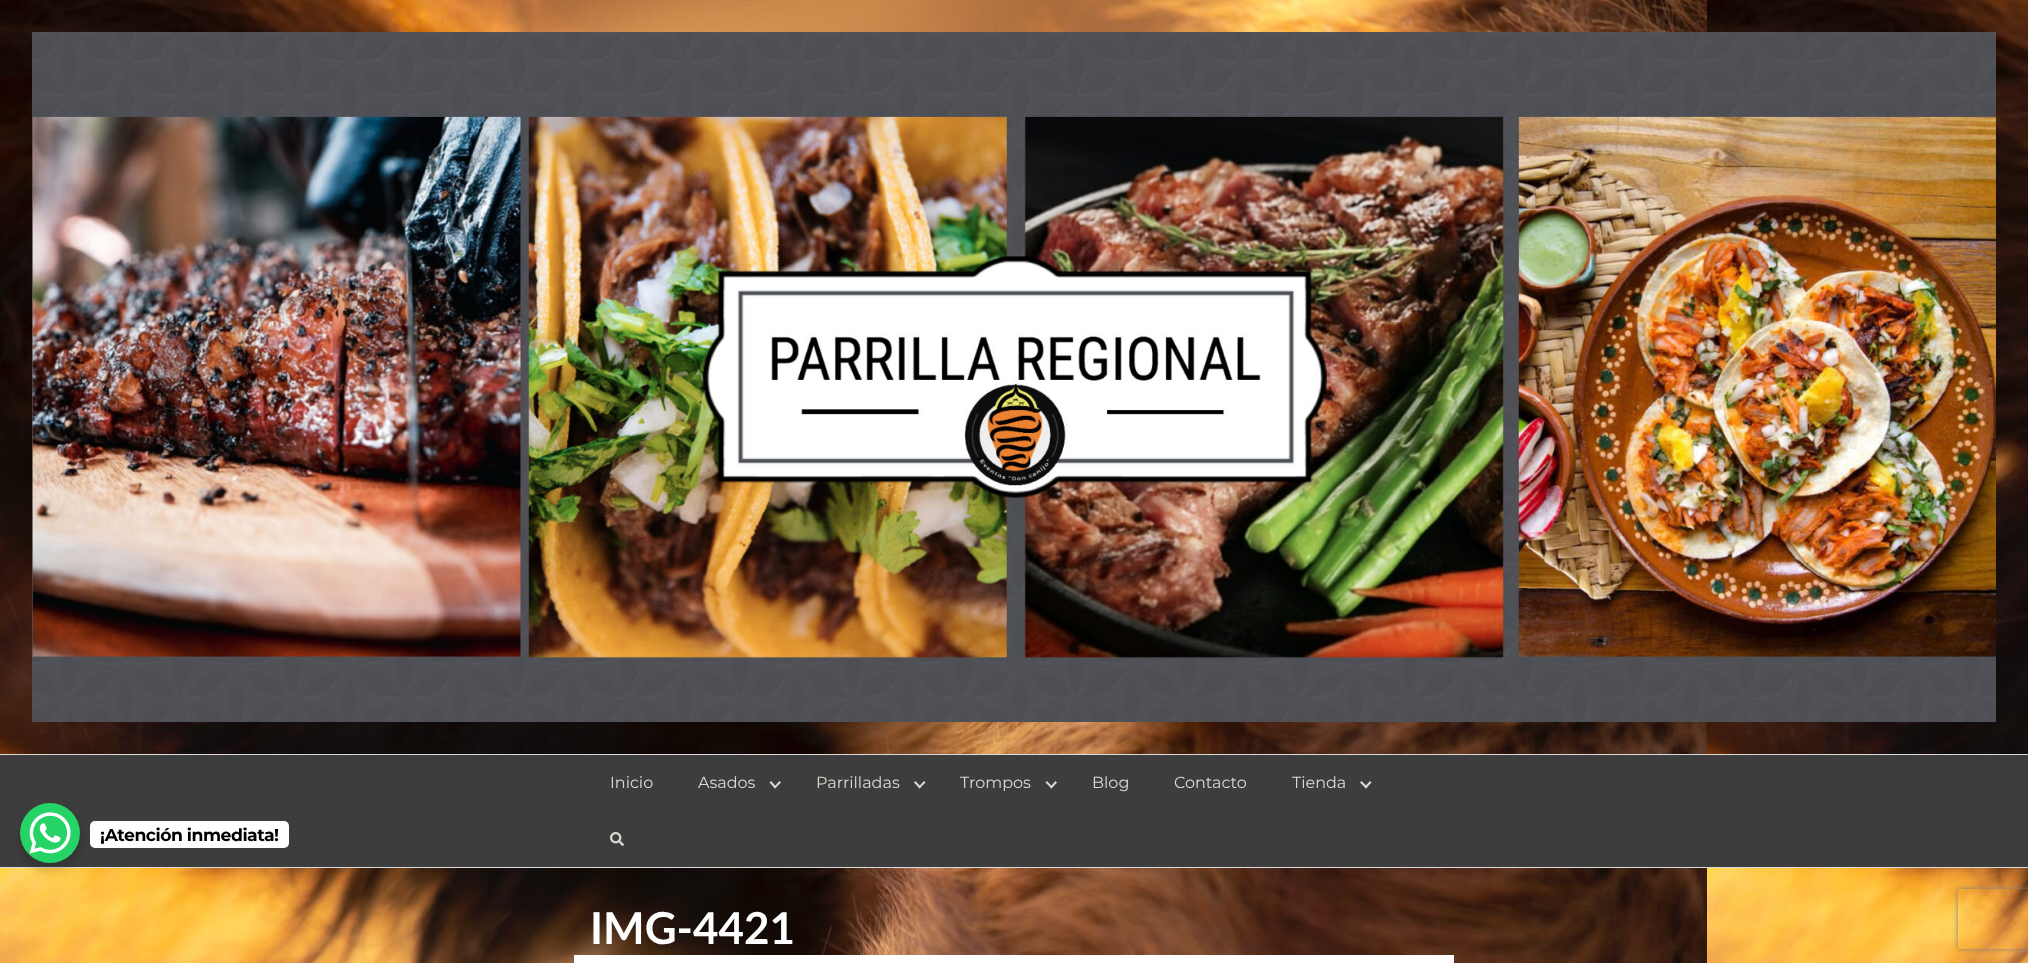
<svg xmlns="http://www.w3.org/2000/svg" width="2028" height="963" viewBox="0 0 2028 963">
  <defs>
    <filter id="blur1" x="-50%" y="-200%" width="200%" height="500%"><feGaussianBlur stdDeviation="4"/></filter>
    <clipPath id="clip1"><path d="M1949 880H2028V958H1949ZM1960 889H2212C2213 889 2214 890 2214 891V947C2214 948 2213 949 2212 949H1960C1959 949 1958 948 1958 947V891C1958 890 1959 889 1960 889Z" clip-rule="evenodd"/></clipPath>
    <filter id="blur2" x="-50%" y="-200%" width="200%" height="500%"><feGaussianBlur stdDeviation="2.5"/></filter>
  </defs>
  <rect width="100%" height="100%" fill="#ffffff"/>
  <image x="0" y="0" width="2028" height="963" href="img1.png"/>
  <rect x="0" y="754" width="2028" height="1" fill="#dbdbdb"/>
  <image x="32" y="32" width="1964" height="690" href="img2.png"/>
  <rect x="0" y="755" width="2028" height="112" fill="#3d3d3d"/>
  <rect x="0" y="867" width="2028" height="1" fill="#dbdbdb"/>
  <text x="610" y="788" font-family="Montserrat" font-size="16" fill="#ddd9d2">Inicio</text>
  <text x="698" y="788" font-family="Montserrat" font-size="16" fill="#ddd9d2">Asados</text>
  <path d="M779.5 781L781 782.5L775 788.5L774 787Z" fill="#ddd9d2"/>
  <path d="M771 781L776.5 787L775 788.5L769.5 782.5Z" fill="#ddd9d2"/>
  <text x="816" y="788" font-family="Montserrat" font-size="16" fill="#ddd9d2">Parrilladas</text>
  <path d="M924 781L925.5 782.5L919.5 788.5L918.5 787Z" fill="#ddd9d2"/>
  <path d="M915.5 781L921 787L919.5 788.5L914 782.5Z" fill="#ddd9d2"/>
  <text x="960" y="788" font-family="Montserrat" font-size="16" fill="#ddd9d2">Trompos</text>
  <path d="M1055.5 781L1057 782.5L1051.5 788.5L1050 787Z" fill="#ddd9d2"/>
  <path d="M1047 781L1052.5 787L1051.5 788.5L1045.5 782.5Z" fill="#ddd9d2"/>
  <text x="1092" y="788" font-family="Montserrat" font-size="16" fill="#ddd9d2">Blog</text>
  <text x="1174" y="788" font-family="Montserrat" font-size="16" fill="#ddd9d2">Contacto</text>
  <text x="1292" y="788" font-family="Montserrat" font-size="16" fill="#ddd9d2">Tienda</text>
  <path d="M1370 781L1371.5 782.5L1366 788.5L1364.5 787Z" fill="#ddd9d2"/>
  <path d="M1361.5 781L1367.5 787L1366 788.5L1360 782.5Z" fill="#ddd9d2"/>
  <image x="610" y="832" width="14" height="14" href="img3.png"/>
  <rect x="18" y="807" width="64" height="64" rx="32" fill="#000000" fill-opacity="0.15" filter="url(#blur1)"/>
  <circle cx="50" cy="833" r="30" fill="#25d366"/>
  <image x="29" y="812" width="42" height="42" href="img4.png"/>
  <rect x="90" y="821" width="199" height="27" rx="5" fill="#ffffff"/>
  <text x="100" y="841" font-family="Montserrat" font-size="17.25" font-weight="bold" letter-spacing="-0.5" fill="#000000">¡Atención inmediata!</text>
  <text x="590" y="944" font-family="Lato" font-size="44" font-weight="bold" fill="#ffffff">IMG-4421</text>
  <rect x="574" y="955" width="880" height="8" fill="#ffffff"/>
  <g clip-path="url(#clip1)">
    <rect x="1958" y="889" width="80" height="60" rx="2" fill="#808080" filter="url(#blur2)"/>
  </g>
</svg>
